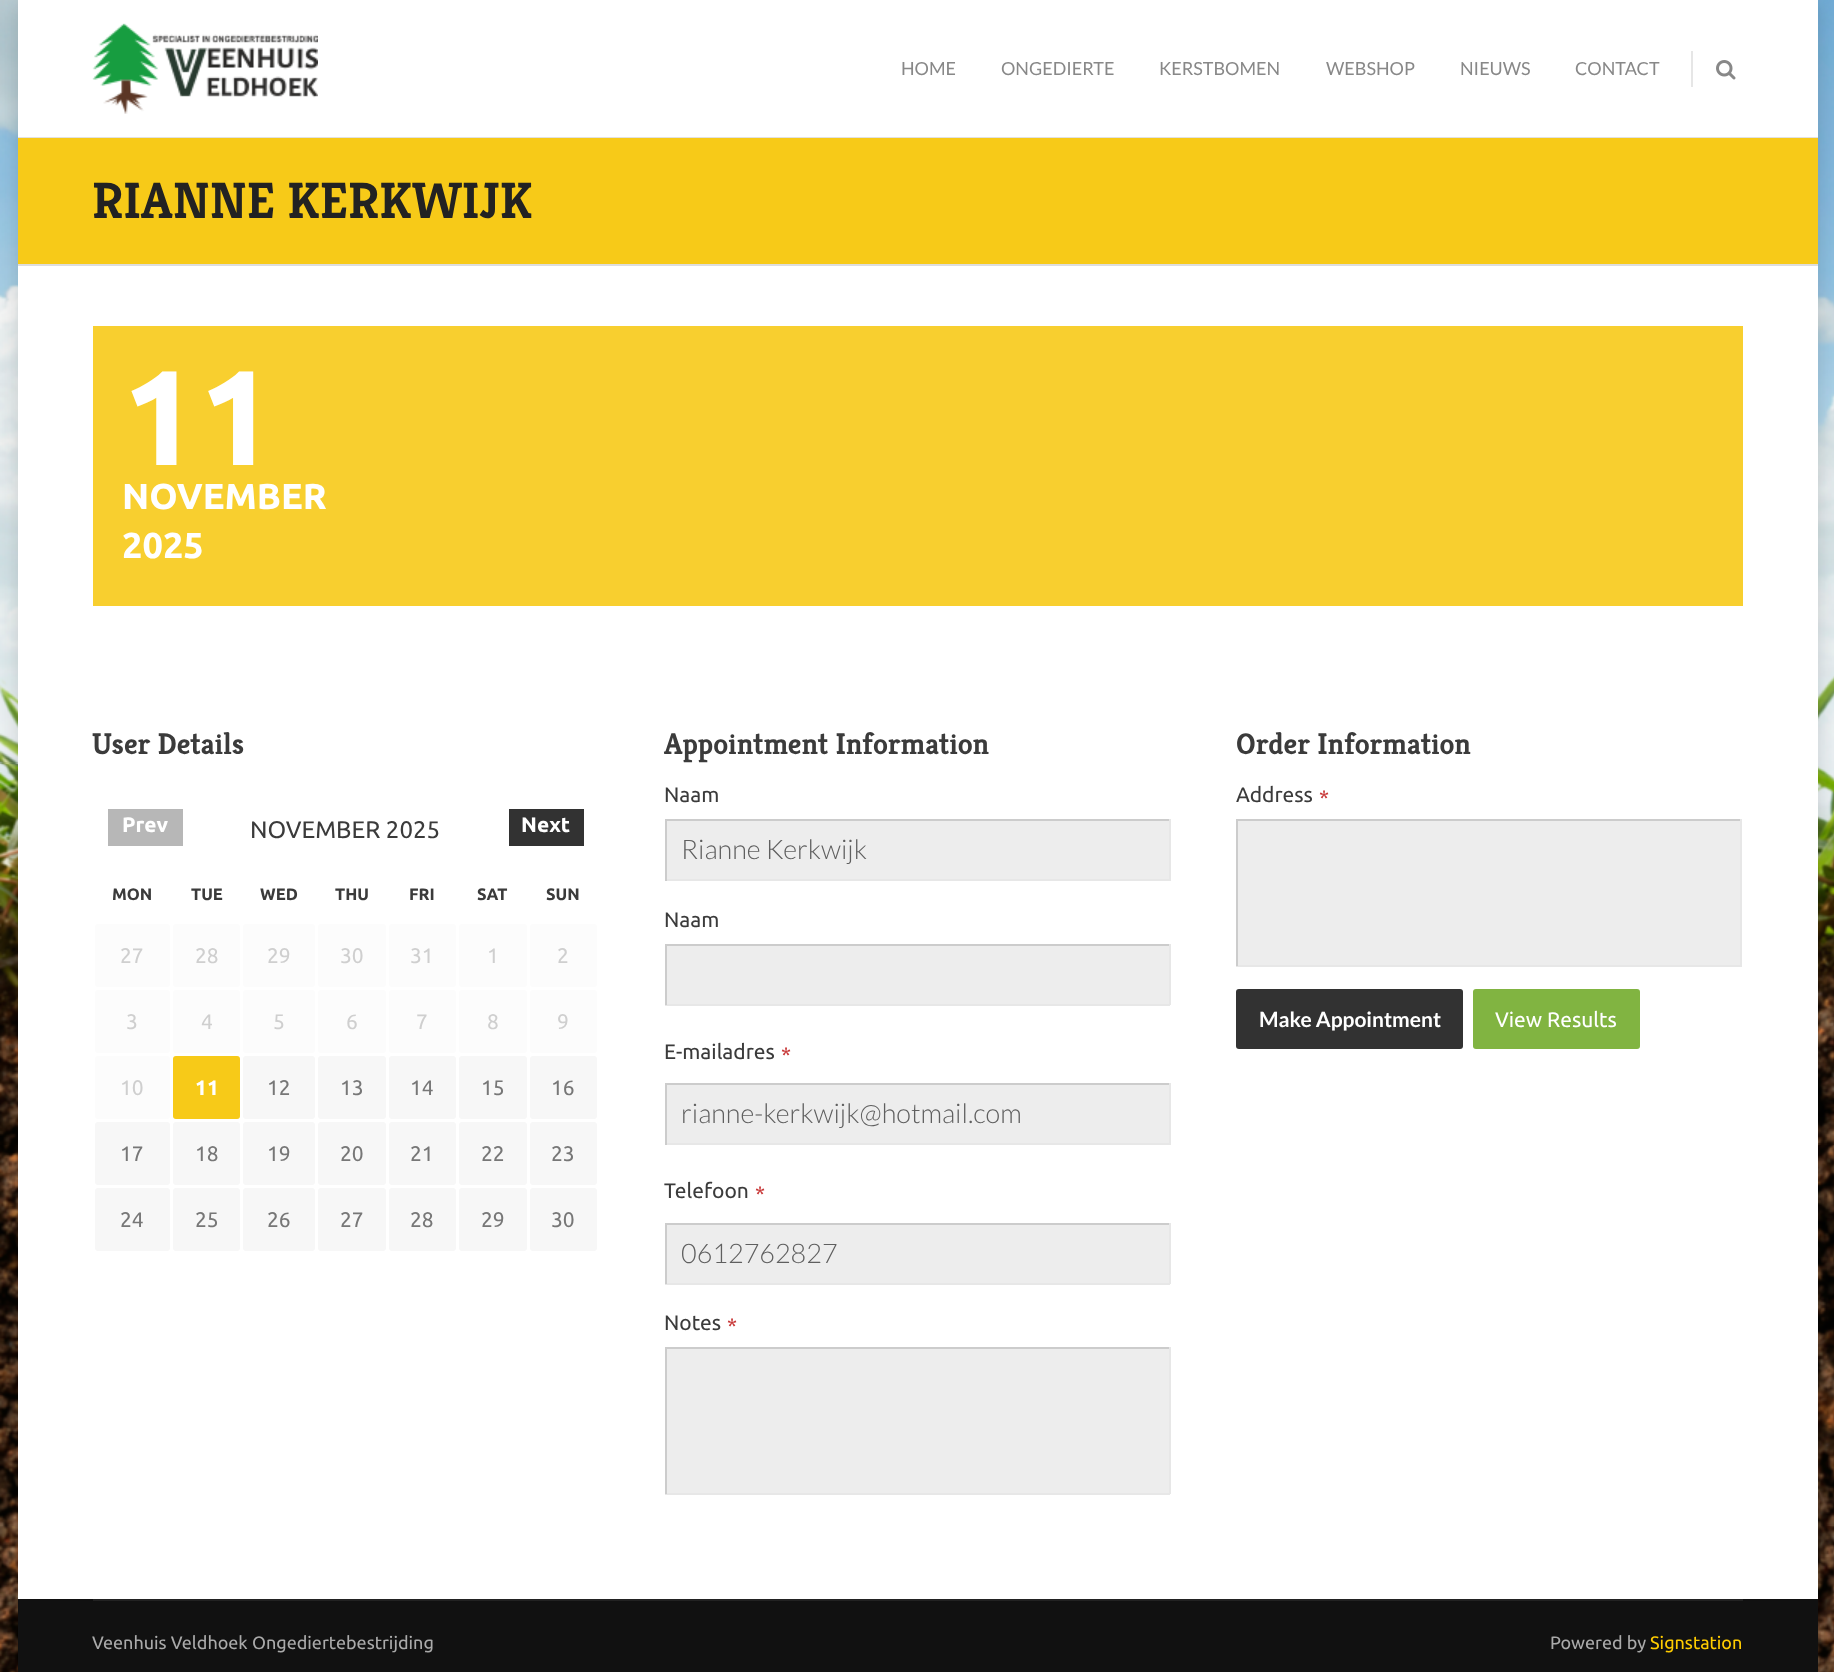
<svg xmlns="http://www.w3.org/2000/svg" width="1834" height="1672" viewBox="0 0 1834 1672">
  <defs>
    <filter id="blur1" x="-50%" y="-200%" width="200%" height="500%"><feGaussianBlur stdDeviation="11"/></filter>
  </defs>
  <rect width="100%" height="100%" fill="#ffffff"/>
  <image x="0" y="0" width="1834" height="1672" href="img1.png"/>
  <rect x="18" y="0" width="1800" height="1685" fill="#000000" fill-opacity="0.15" filter="url(#blur1)"/>
  <rect x="18" y="0" width="1800" height="1599" fill="#ffffff"/>
  <rect x="18" y="137" width="1800" height="1" fill="#e1e1e1"/>
  <image x="92" y="23" width="226" height="91" href="img2.png"/>
  <text x="901" y="75" font-family="Lato" font-size="18" fill="#888888">HOME</text>
  <text x="1001" y="75" font-family="Lato" font-size="18" fill="#888888">ONGEDIERTE</text>
  <text x="1159" y="75" font-family="Lato" font-size="18" fill="#888888">KERSTBOMEN</text>
  <text x="1326" y="75" font-family="Lato" font-size="18" fill="#888888">WEBSHOP</text>
  <text x="1460" y="75" font-family="Lato" font-size="18" fill="#888888">NIEUWS</text>
  <text x="1575" y="75" font-family="Lato" font-size="18" fill="#888888">CONTACT</text>
  <rect x="1691" y="51" width="2" height="36" fill="#e6e6e6"/>
  <image x="1716" y="60" width="20" height="20" href="img3.png"/>
  <rect x="18" y="138" width="1800" height="126" fill="#f7ca18"/>
  <rect x="18" y="264" width="1800" height="2" fill="#dddddd"/>
  <text x="92" y="218" font-family="Kreon" font-size="51" font-weight="bold" fill="#222222">RIANNE KERKWIJK</text>
  <rect x="93" y="326" width="1650" height="280" fill="#f8cf2f"/>
  <text x="122" y="465" font-family="Ubuntu" font-size="135" font-weight="bold" fill="#ffffff">11</text>
  <text x="122" y="509" font-family="Ubuntu" font-size="36" font-weight="bold" fill="#ffffff">NOVEMBER</text>
  <text x="122" y="558" font-family="Ubuntu" font-size="36" font-weight="bold" fill="#ffffff">2025</text>
  <text x="92" y="754" font-family="Kreon" font-size="30" font-weight="bold" fill="#3b3b3b">User Details</text>
  <rect x="108" y="809" width="75" height="37" fill="#b7b7b7"/>
  <text x="122" y="832" font-family="Ubuntu" font-size="21" font-weight="bold" fill="#ffffff">Prev</text>
  <text x="250" y="838" font-family="Ubuntu" font-size="24" fill="#3b3b3b">NOVEMBER 2025</text>
  <rect x="509" y="809" width="75" height="37" fill="#323232"/>
  <text x="521" y="832" font-family="Ubuntu" font-size="21" font-weight="bold" fill="#ffffff">Next</text>
  <text x="112" y="900" font-family="Ubuntu" font-size="16.5" font-weight="bold" fill="#3b3b3b">MON</text>
  <text x="191" y="900" font-family="Ubuntu" font-size="16.5" font-weight="bold" fill="#3b3b3b">TUE</text>
  <text x="260" y="900" font-family="Ubuntu" font-size="16.5" font-weight="bold" fill="#3b3b3b">WED</text>
  <text x="335" y="900" font-family="Ubuntu" font-size="16.5" font-weight="bold" fill="#3b3b3b">THU</text>
  <text x="409" y="900" font-family="Ubuntu" font-size="16.5" font-weight="bold" fill="#3b3b3b">FRI</text>
  <text x="477" y="900" font-family="Ubuntu" font-size="16.5" font-weight="bold" fill="#3b3b3b">SAT</text>
  <text x="546" y="900" font-family="Ubuntu" font-size="16.5" font-weight="bold" fill="#3b3b3b">SUN</text>
  <rect x="95" y="924" width="75" height="63" rx="3" fill="#fcfcfc"/>
  <text x="120" y="963" font-family="Ubuntu" font-size="21" fill="#cfcfcf">27</text>
  <rect x="173" y="924" width="67" height="63" rx="3" fill="#fcfcfc"/>
  <text x="195" y="963" font-family="Ubuntu" font-size="21" fill="#cfcfcf">28</text>
  <rect x="243" y="924" width="72" height="63" rx="3" fill="#fcfcfc"/>
  <text x="267" y="963" font-family="Ubuntu" font-size="21" fill="#cfcfcf">29</text>
  <rect x="318" y="924" width="68" height="63" rx="3" fill="#fcfcfc"/>
  <text x="340" y="963" font-family="Ubuntu" font-size="21" fill="#cfcfcf">30</text>
  <rect x="389" y="924" width="67" height="63" rx="3" fill="#fcfcfc"/>
  <text x="410" y="963" font-family="Ubuntu" font-size="21" fill="#cfcfcf">31</text>
  <rect x="459" y="924" width="68" height="63" rx="3" fill="#fcfcfc"/>
  <text x="487" y="963" font-family="Ubuntu" font-size="21" fill="#cfcfcf">1</text>
  <rect x="530" y="924" width="67" height="63" rx="3" fill="#fcfcfc"/>
  <text x="557" y="963" font-family="Ubuntu" font-size="21" fill="#cfcfcf">2</text>
  <rect x="95" y="990" width="75" height="63" rx="3" fill="#fcfcfc"/>
  <text x="126" y="1029" font-family="Ubuntu" font-size="21" fill="#cfcfcf">3</text>
  <rect x="173" y="990" width="67" height="63" rx="3" fill="#fcfcfc"/>
  <text x="201" y="1029" font-family="Ubuntu" font-size="21" fill="#cfcfcf">4</text>
  <rect x="243" y="990" width="72" height="63" rx="3" fill="#fcfcfc"/>
  <text x="273" y="1029" font-family="Ubuntu" font-size="21" fill="#cfcfcf">5</text>
  <rect x="318" y="990" width="68" height="63" rx="3" fill="#fcfcfc"/>
  <text x="346" y="1029" font-family="Ubuntu" font-size="21" fill="#cfcfcf">6</text>
  <rect x="389" y="990" width="67" height="63" rx="3" fill="#fcfcfc"/>
  <text x="416" y="1029" font-family="Ubuntu" font-size="21" fill="#cfcfcf">7</text>
  <rect x="459" y="990" width="68" height="63" rx="3" fill="#fcfcfc"/>
  <text x="487" y="1029" font-family="Ubuntu" font-size="21" fill="#cfcfcf">8</text>
  <rect x="530" y="990" width="67" height="63" rx="3" fill="#fcfcfc"/>
  <text x="557" y="1029" font-family="Ubuntu" font-size="21" fill="#cfcfcf">9</text>
  <rect x="95" y="1056" width="75" height="63" rx="3" fill="#fcfcfc"/>
  <text x="120" y="1095" font-family="Ubuntu" font-size="21" fill="#cfcfcf">10</text>
  <rect x="173" y="1056" width="67" height="63" rx="3" fill="#f7ca18"/>
  <text x="195" y="1095" font-family="Ubuntu" font-size="21" font-weight="bold" fill="#ffffff">11</text>
  <rect x="243" y="1056" width="72" height="63" rx="3" fill="#f7f7f7"/>
  <text x="267" y="1095" font-family="Ubuntu" font-size="21" fill="#777777">12</text>
  <rect x="318" y="1056" width="68" height="63" rx="3" fill="#f7f7f7"/>
  <text x="340" y="1095" font-family="Ubuntu" font-size="21" fill="#777777">13</text>
  <rect x="389" y="1056" width="67" height="63" rx="3" fill="#f7f7f7"/>
  <text x="410" y="1095" font-family="Ubuntu" font-size="21" fill="#777777">14</text>
  <rect x="459" y="1056" width="68" height="63" rx="3" fill="#f7f7f7"/>
  <text x="481" y="1095" font-family="Ubuntu" font-size="21" fill="#777777">15</text>
  <rect x="530" y="1056" width="67" height="63" rx="3" fill="#f7f7f7"/>
  <text x="551" y="1095" font-family="Ubuntu" font-size="21" fill="#777777">16</text>
  <rect x="95" y="1122" width="75" height="63" rx="3" fill="#f7f7f7"/>
  <text x="120" y="1161" font-family="Ubuntu" font-size="21" fill="#777777">17</text>
  <rect x="173" y="1122" width="67" height="63" rx="3" fill="#f7f7f7"/>
  <text x="195" y="1161" font-family="Ubuntu" font-size="21" fill="#777777">18</text>
  <rect x="243" y="1122" width="72" height="63" rx="3" fill="#f7f7f7"/>
  <text x="267" y="1161" font-family="Ubuntu" font-size="21" fill="#777777">19</text>
  <rect x="318" y="1122" width="68" height="63" rx="3" fill="#f7f7f7"/>
  <text x="340" y="1161" font-family="Ubuntu" font-size="21" fill="#777777">20</text>
  <rect x="389" y="1122" width="67" height="63" rx="3" fill="#f7f7f7"/>
  <text x="410" y="1161" font-family="Ubuntu" font-size="21" fill="#777777">21</text>
  <rect x="459" y="1122" width="68" height="63" rx="3" fill="#f7f7f7"/>
  <text x="481" y="1161" font-family="Ubuntu" font-size="21" fill="#777777">22</text>
  <rect x="530" y="1122" width="67" height="63" rx="3" fill="#f7f7f7"/>
  <text x="551" y="1161" font-family="Ubuntu" font-size="21" fill="#777777">23</text>
  <rect x="95" y="1188" width="75" height="63" rx="3" fill="#f7f7f7"/>
  <text x="120" y="1227" font-family="Ubuntu" font-size="21" fill="#777777">24</text>
  <rect x="173" y="1188" width="67" height="63" rx="3" fill="#f7f7f7"/>
  <text x="195" y="1227" font-family="Ubuntu" font-size="21" fill="#777777">25</text>
  <rect x="243" y="1188" width="72" height="63" rx="3" fill="#f7f7f7"/>
  <text x="267" y="1227" font-family="Ubuntu" font-size="21" fill="#777777">26</text>
  <rect x="318" y="1188" width="68" height="63" rx="3" fill="#f7f7f7"/>
  <text x="340" y="1227" font-family="Ubuntu" font-size="21" fill="#777777">27</text>
  <rect x="389" y="1188" width="67" height="63" rx="3" fill="#f7f7f7"/>
  <text x="410" y="1227" font-family="Ubuntu" font-size="21" fill="#777777">28</text>
  <rect x="459" y="1188" width="68" height="63" rx="3" fill="#f7f7f7"/>
  <text x="481" y="1227" font-family="Ubuntu" font-size="21" fill="#777777">29</text>
  <rect x="530" y="1188" width="67" height="63" rx="3" fill="#f7f7f7"/>
  <text x="551" y="1227" font-family="Ubuntu" font-size="21" fill="#777777">30</text>
  <text x="664" y="754" font-family="Kreon" font-size="30" font-weight="bold" fill="#3b3b3b">Appointment Information</text>
  <text x="664" y="802" font-family="Ubuntu" font-size="21" fill="#3b3b3b">Naam</text>
  <rect x="667" y="821" width="502" height="58" fill="#ededed"/>
  <rect x="665" y="819" width="505" height="2" fill="#cccccc"/>
  <rect x="1169" y="819" width="2" height="62" fill="#e7e7e7"/>
  <rect x="665" y="879" width="505" height="2" fill="#e7e7e7"/>
  <rect x="665" y="819" width="2" height="62" fill="#cccccc"/>
  <text x="681" y="859" font-family="Lato" font-size="27" font-weight="300" fill="#5f5f5f">Rianne Kerkwijk</text>
  <text x="664" y="927" font-family="Ubuntu" font-size="21" fill="#3b3b3b">Naam</text>
  <rect x="667" y="946" width="502" height="58" fill="#ededed"/>
  <rect x="665" y="944" width="505" height="2" fill="#cccccc"/>
  <rect x="1169" y="944" width="2" height="61" fill="#e7e7e7"/>
  <rect x="665" y="1004" width="505" height="2" fill="#e7e7e7"/>
  <rect x="665" y="944" width="2" height="61" fill="#cccccc"/>
  <text x="664" y="1059" font-family="Ubuntu" font-size="21" fill="#3b3b3b">E-mailadres</text>
  <text x="781" y="1062" font-family="Ubuntu" font-size="21" fill="#c83838">*</text>
  <rect x="667" y="1085" width="502" height="58" fill="#ededed"/>
  <rect x="665" y="1083" width="505" height="2" fill="#cccccc"/>
  <rect x="1169" y="1083" width="2" height="62" fill="#e7e7e7"/>
  <rect x="665" y="1143" width="505" height="2" fill="#e7e7e7"/>
  <rect x="665" y="1083" width="2" height="62" fill="#cccccc"/>
  <text x="681" y="1123" font-family="Lato" font-size="27" font-weight="300" fill="#5f5f5f">rianne-kerkwijk@hotmail.com</text>
  <text x="664" y="1198" font-family="Ubuntu" font-size="21" fill="#3b3b3b">Telefoon</text>
  <text x="755" y="1201" font-family="Ubuntu" font-size="21" fill="#c83838">*</text>
  <rect x="667" y="1225" width="502" height="58" fill="#ededed"/>
  <rect x="665" y="1223" width="505" height="2" fill="#cccccc"/>
  <rect x="1169" y="1223" width="2" height="61" fill="#e7e7e7"/>
  <rect x="665" y="1283" width="505" height="2" fill="#e7e7e7"/>
  <rect x="665" y="1223" width="2" height="61" fill="#cccccc"/>
  <text x="681" y="1263" font-family="Lato" font-size="27" font-weight="300" fill="#5f5f5f">0612762827</text>
  <text x="664" y="1330" font-family="Ubuntu" font-size="21" fill="#3b3b3b">Notes</text>
  <text x="727" y="1333" font-family="Ubuntu" font-size="21" fill="#c83838">*</text>
  <rect x="667" y="1349" width="502" height="144" fill="#ededed"/>
  <rect x="665" y="1347" width="505" height="2" fill="#cccccc"/>
  <rect x="1169" y="1347" width="2" height="147" fill="#e7e7e7"/>
  <rect x="665" y="1493" width="505" height="2" fill="#e7e7e7"/>
  <rect x="665" y="1347" width="2" height="147" fill="#cccccc"/>
  <text x="1236" y="754" font-family="Kreon" font-size="30" font-weight="bold" fill="#3b3b3b">Order Information</text>
  <text x="1236" y="802" font-family="Ubuntu" font-size="21" fill="#3b3b3b">Address</text>
  <text x="1319" y="805" font-family="Ubuntu" font-size="21" fill="#c83838">*</text>
  <rect x="1238" y="821" width="502" height="144" fill="#ededed"/>
  <rect x="1236" y="819" width="506" height="2" fill="#cccccc"/>
  <rect x="1740" y="819" width="2" height="147" fill="#e7e7e7"/>
  <rect x="1236" y="965" width="506" height="2" fill="#e7e7e7"/>
  <rect x="1236" y="819" width="2" height="147" fill="#cccccc"/>
  <rect x="1236" y="989" width="227" height="60" rx="3" fill="#323232"/>
  <text x="1259" y="1027" font-family="Lato" font-size="21" font-weight="bold" fill="#ffffff">Make Appointment</text>
  <rect x="1473" y="989" width="167" height="60" rx="3" fill="#81b441"/>
  <text x="1495" y="1027" font-family="Ubuntu" font-size="21" fill="#ffffff">View Results</text>
  <rect x="18" y="1599" width="1800" height="73" fill="#111111"/>
  <rect x="93" y="1599" width="1650" height="2" fill="#222222"/>
  <text x="92" y="1649" font-family="Ubuntu" font-size="18" fill="#aaaaaa">Veenhuis Veldhoek Ongediertebestrijding</text>
  <text x="1550" y="1649" font-family="Ubuntu" font-size="18" fill="#aaaaaa">Powered by</text>
  <text x="1650" y="1649" font-family="Ubuntu" font-size="18" fill="#ffcc00">Signstation</text>
</svg>
